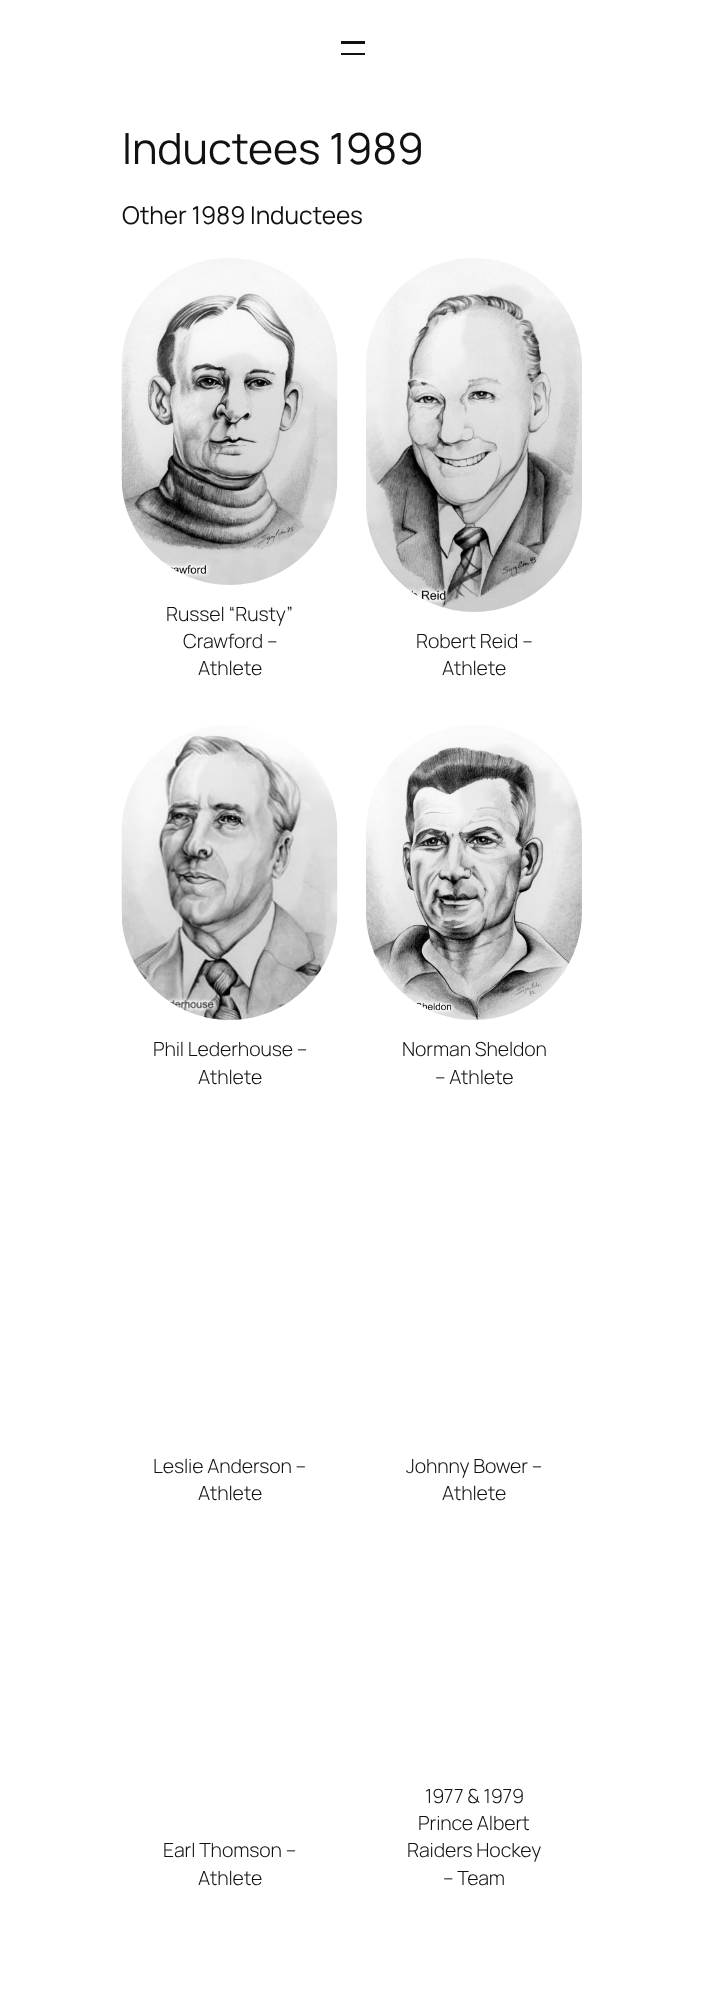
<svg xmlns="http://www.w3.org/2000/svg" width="703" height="2005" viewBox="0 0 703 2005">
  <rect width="100%" height="100%" fill="#ffffff"/>
  <rect x="341" y="41" width="24" height="3" fill="#111111"/>
  <rect x="341" y="53" width="24" height="2" fill="#111111"/>
  <text x="122" y="164" font-family="Manrope" font-size="43" letter-spacing="-0.1" fill="#111111">Inductees 1989</text>
  <text x="122" y="224" font-family="Manrope" font-size="24.5" letter-spacing="-0.1" fill="#111111">Other 1989 Inductees</text>
  <image x="121" y="258" width="217" height="327" href="img1.png"/>
  <text x="166" y="621" font-family="Manrope" font-size="19.5" font-weight="300" letter-spacing="-0.1" fill="#111111">Russel “Rusty”</text>
  <text x="183" y="648" font-family="Manrope" font-size="19.5" font-weight="300" letter-spacing="-0.1" fill="#111111">Crawford –</text>
  <text x="198" y="675" font-family="Manrope" font-size="19.5" font-weight="300" letter-spacing="-0.1" fill="#111111">Athlete</text>
  <image x="366" y="258" width="216" height="354" href="img2.png"/>
  <text x="416" y="648" font-family="Manrope" font-size="19.5" font-weight="300" letter-spacing="-0.1" fill="#111111">Robert Reid –</text>
  <text x="442" y="675" font-family="Manrope" font-size="19.5" font-weight="300" letter-spacing="-0.1" fill="#111111">Athlete</text>
  <image x="121" y="725" width="217" height="295" href="img3.png"/>
  <text x="153" y="1056" font-family="Manrope" font-size="19.5" font-weight="300" letter-spacing="-0.1" fill="#111111">Phil Lederhouse –</text>
  <text x="198" y="1084" font-family="Manrope" font-size="19.5" font-weight="300" letter-spacing="-0.1" fill="#111111">Athlete</text>
  <image x="366" y="725" width="216" height="295" href="img4.png"/>
  <text x="402" y="1056" font-family="Manrope" font-size="19.5" font-weight="300" letter-spacing="-0.1" fill="#111111">Norman Sheldon</text>
  <text x="435" y="1084" font-family="Manrope" font-size="19.5" font-weight="300" letter-spacing="-0.1" fill="#111111">– Athlete</text>
  <text x="153" y="1473" font-family="Manrope" font-size="19.5" font-weight="300" letter-spacing="-0.1" fill="#111111">Leslie Anderson –</text>
  <text x="198" y="1500" font-family="Manrope" font-size="19.5" font-weight="300" letter-spacing="-0.1" fill="#111111">Athlete</text>
  <text x="406" y="1473" font-family="Manrope" font-size="19.5" font-weight="300" letter-spacing="-0.1" fill="#111111">Johnny Bower –</text>
  <text x="442" y="1500" font-family="Manrope" font-size="19.5" font-weight="300" letter-spacing="-0.1" fill="#111111">Athlete</text>
  <text x="163" y="1857" font-family="Manrope" font-size="19.5" font-weight="300" letter-spacing="-0.1" fill="#111111">Earl Thomson –</text>
  <text x="198" y="1885" font-family="Manrope" font-size="19.5" font-weight="300" letter-spacing="-0.1" fill="#111111">Athlete</text>
  <text x="425" y="1803" font-family="Manrope" font-size="19.5" font-weight="300" letter-spacing="-0.1" fill="#111111">1977 &amp; 1979</text>
  <text x="418" y="1830" font-family="Manrope" font-size="19.5" font-weight="300" letter-spacing="-0.1" fill="#111111">Prince Albert</text>
  <text x="407" y="1857" font-family="Manrope" font-size="19.5" font-weight="300" letter-spacing="-0.1" fill="#111111">Raiders Hockey</text>
  <text x="443" y="1885" font-family="Manrope" font-size="19.5" font-weight="300" letter-spacing="-0.1" fill="#111111">– Team</text>
</svg>
